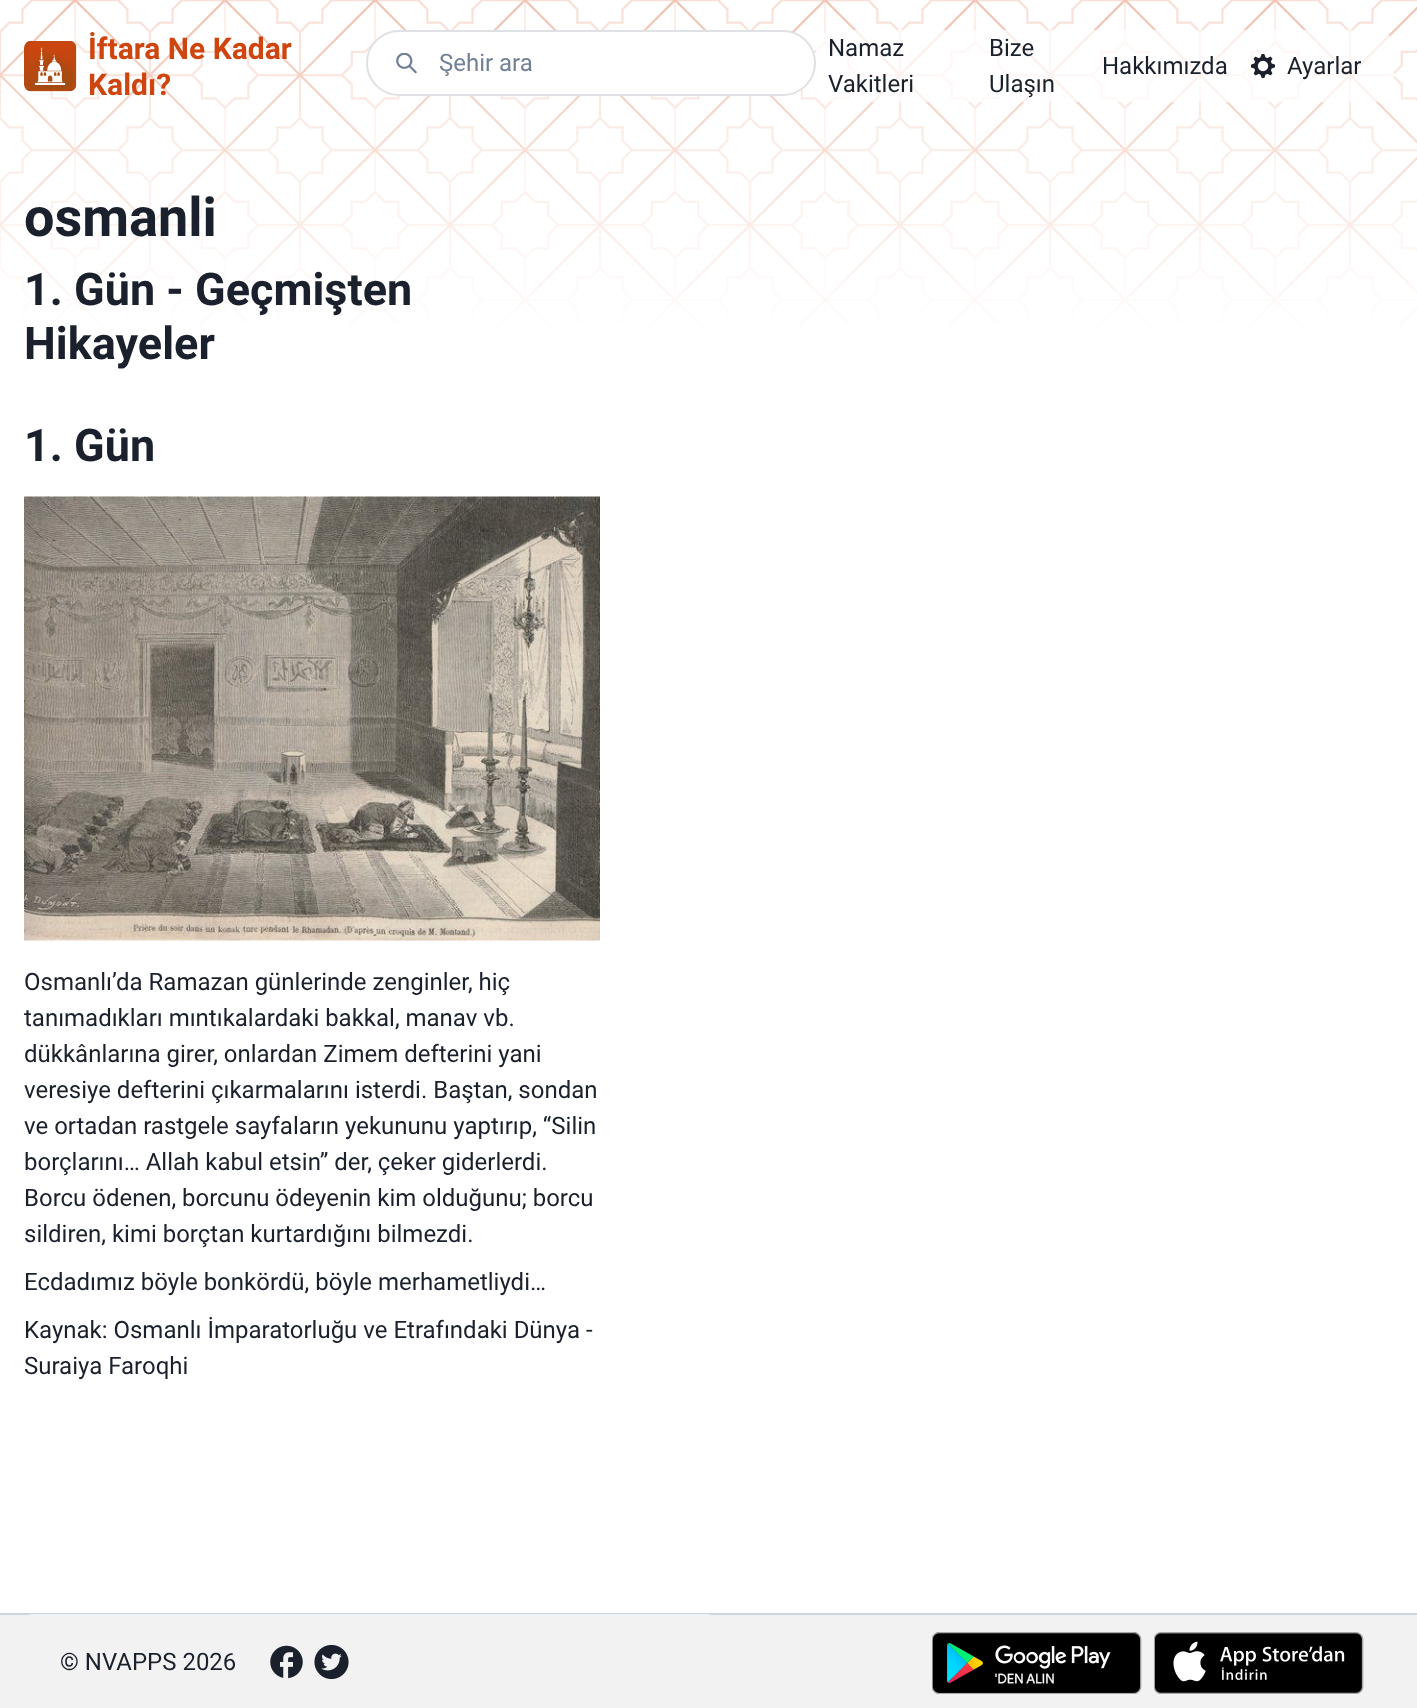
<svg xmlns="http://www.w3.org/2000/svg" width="1417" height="1708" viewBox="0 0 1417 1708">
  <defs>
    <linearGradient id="g1" gradientUnits="userSpaceOnUse" x1="709" y1="0" x2="709" y2="450"><stop offset="0" stop-color="#ffffff" stop-opacity="0"/><stop offset="0.75" stop-color="#ffffff"/></linearGradient>
  </defs>
  <rect width="100%" height="100%" fill="#ffffff"/>
  <image x="0" y="0" width="1417" height="336" href="img1.png"/>
  <rect x="0" y="11" width="1417" height="325" fill="url(#g1)"/>
  <image x="24" y="41" width="53" height="51" href="img2.png"/>
  <text x="88" y="59" font-family="Roboto" font-size="30" font-weight="bold" fill="#ce450f">İftara Ne Kadar</text>
  <text x="88" y="95" font-family="Roboto" font-size="30" font-weight="bold" fill="#ce450f">Kaldı?</text>
  <rect x="367" y="31" width="448" height="64" rx="32" fill="#ffffff" stroke="#dfe1e5" stroke-width="2"/>
  <image x="396" y="53" width="21" height="21" href="img3.png"/>
  <text x="439" y="71" font-family="Roboto" font-size="24" fill="#718096">Şehir ara</text>
  <rect x="816" y="30" width="578" height="72" rx="18" fill="#ffffff" fill-opacity="0.69"/>
  <text x="828" y="56" font-family="Roboto" font-size="24" fill="#1a202c">Namaz</text>
  <text x="828" y="92" font-family="Roboto" font-size="24" fill="#1a202c">Vakitleri</text>
  <text x="989" y="56" font-family="Roboto" font-size="24" fill="#1a202c">Bize</text>
  <text x="989" y="92" font-family="Roboto" font-size="24" fill="#1a202c">Ulaşın</text>
  <text x="1102" y="74" font-family="Roboto" font-size="24" fill="#1a202c">Hakkımızda</text>
  <image x="1251" y="54" width="24" height="24" href="img4.png"/>
  <text x="1287" y="74" font-family="Roboto" font-size="24" fill="#1a202c">Ayarlar</text>
  <text x="24" y="236" font-family="Roboto" font-size="54" font-weight="bold" fill="#1a202c">osmanli</text>
  <text x="24" y="305" font-family="Roboto" font-size="45" font-weight="bold" fill="#1a202c">1. Gün - Geçmişten</text>
  <text x="24" y="359" font-family="Roboto" font-size="45" font-weight="bold" fill="#1a202c">Hikayeler</text>
  <text x="24" y="461" font-family="Roboto" font-size="45" font-weight="bold" fill="#1a202c">1. Gün</text>
  <image x="24" y="496" width="576" height="445" href="img5.png"/>
  <text x="24" y="990" font-family="Roboto" font-size="24" fill="#1a202c">Osmanlı’da Ramazan günlerinde zenginler, hiç</text>
  <text x="24" y="1026" font-family="Roboto" font-size="24" fill="#1a202c">tanımadıkları mıntıkalardaki bakkal, manav vb.</text>
  <text x="24" y="1062" font-family="Roboto" font-size="24" fill="#1a202c">dükkânlarına girer, onlardan Zimem defterini yani</text>
  <text x="24" y="1098" font-family="Roboto" font-size="24" fill="#1a202c">veresiye defterini çıkarmalarını isterdi. Baştan, sondan</text>
  <text x="24" y="1134" font-family="Roboto" font-size="24" fill="#1a202c">ve ortadan rastgele sayfaların yekununu yaptırıp, “Silin</text>
  <text x="24" y="1170" font-family="Roboto" font-size="24" fill="#1a202c">borçlarını… Allah kabul etsin” der, çeker giderlerdi.</text>
  <text x="24" y="1206" font-family="Roboto" font-size="24" fill="#1a202c">Borcu ödenen, borcunu ödeyenin kim olduğunu; borcu</text>
  <text x="24" y="1242" font-family="Roboto" font-size="24" fill="#1a202c">sildiren, kimi borçtan kurtardığını bilmezdi.</text>
  <text x="24" y="1290" font-family="Roboto" font-size="24" fill="#1a202c">Ecdadımız böyle bonkördü, böyle merhametliydi…</text>
  <text x="24" y="1338" font-family="Roboto" font-size="24" fill="#1a202c">Kaynak: Osmanlı İmparatorluğu ve Etrafındaki Dünya -</text>
  <text x="24" y="1374" font-family="Roboto" font-size="24" fill="#1a202c">Suraiya Faroqhi</text>
  <rect x="0" y="1615" width="1417" height="93" fill="#f2f2f2"/>
  <rect x="0" y="1613" width="1417" height="2" fill="#cbd5e0"/>
  <rect x="30" y="1614" width="680" height="1" fill="#f2f2f2"/>
  <text x="60" y="1670" font-family="Roboto" font-size="24" fill="#1a202c">© NVAPPS 2026</text>
  <image x="270" y="1645" width="33" height="34" href="img6.png"/>
  <image x="314" y="1644" width="35" height="36" href="img7.png"/>
  <image x="932" y="1632" width="210" height="62" href="img8.png"/>
  <image x="1154" y="1632" width="210" height="62" href="img9.png"/>
</svg>
